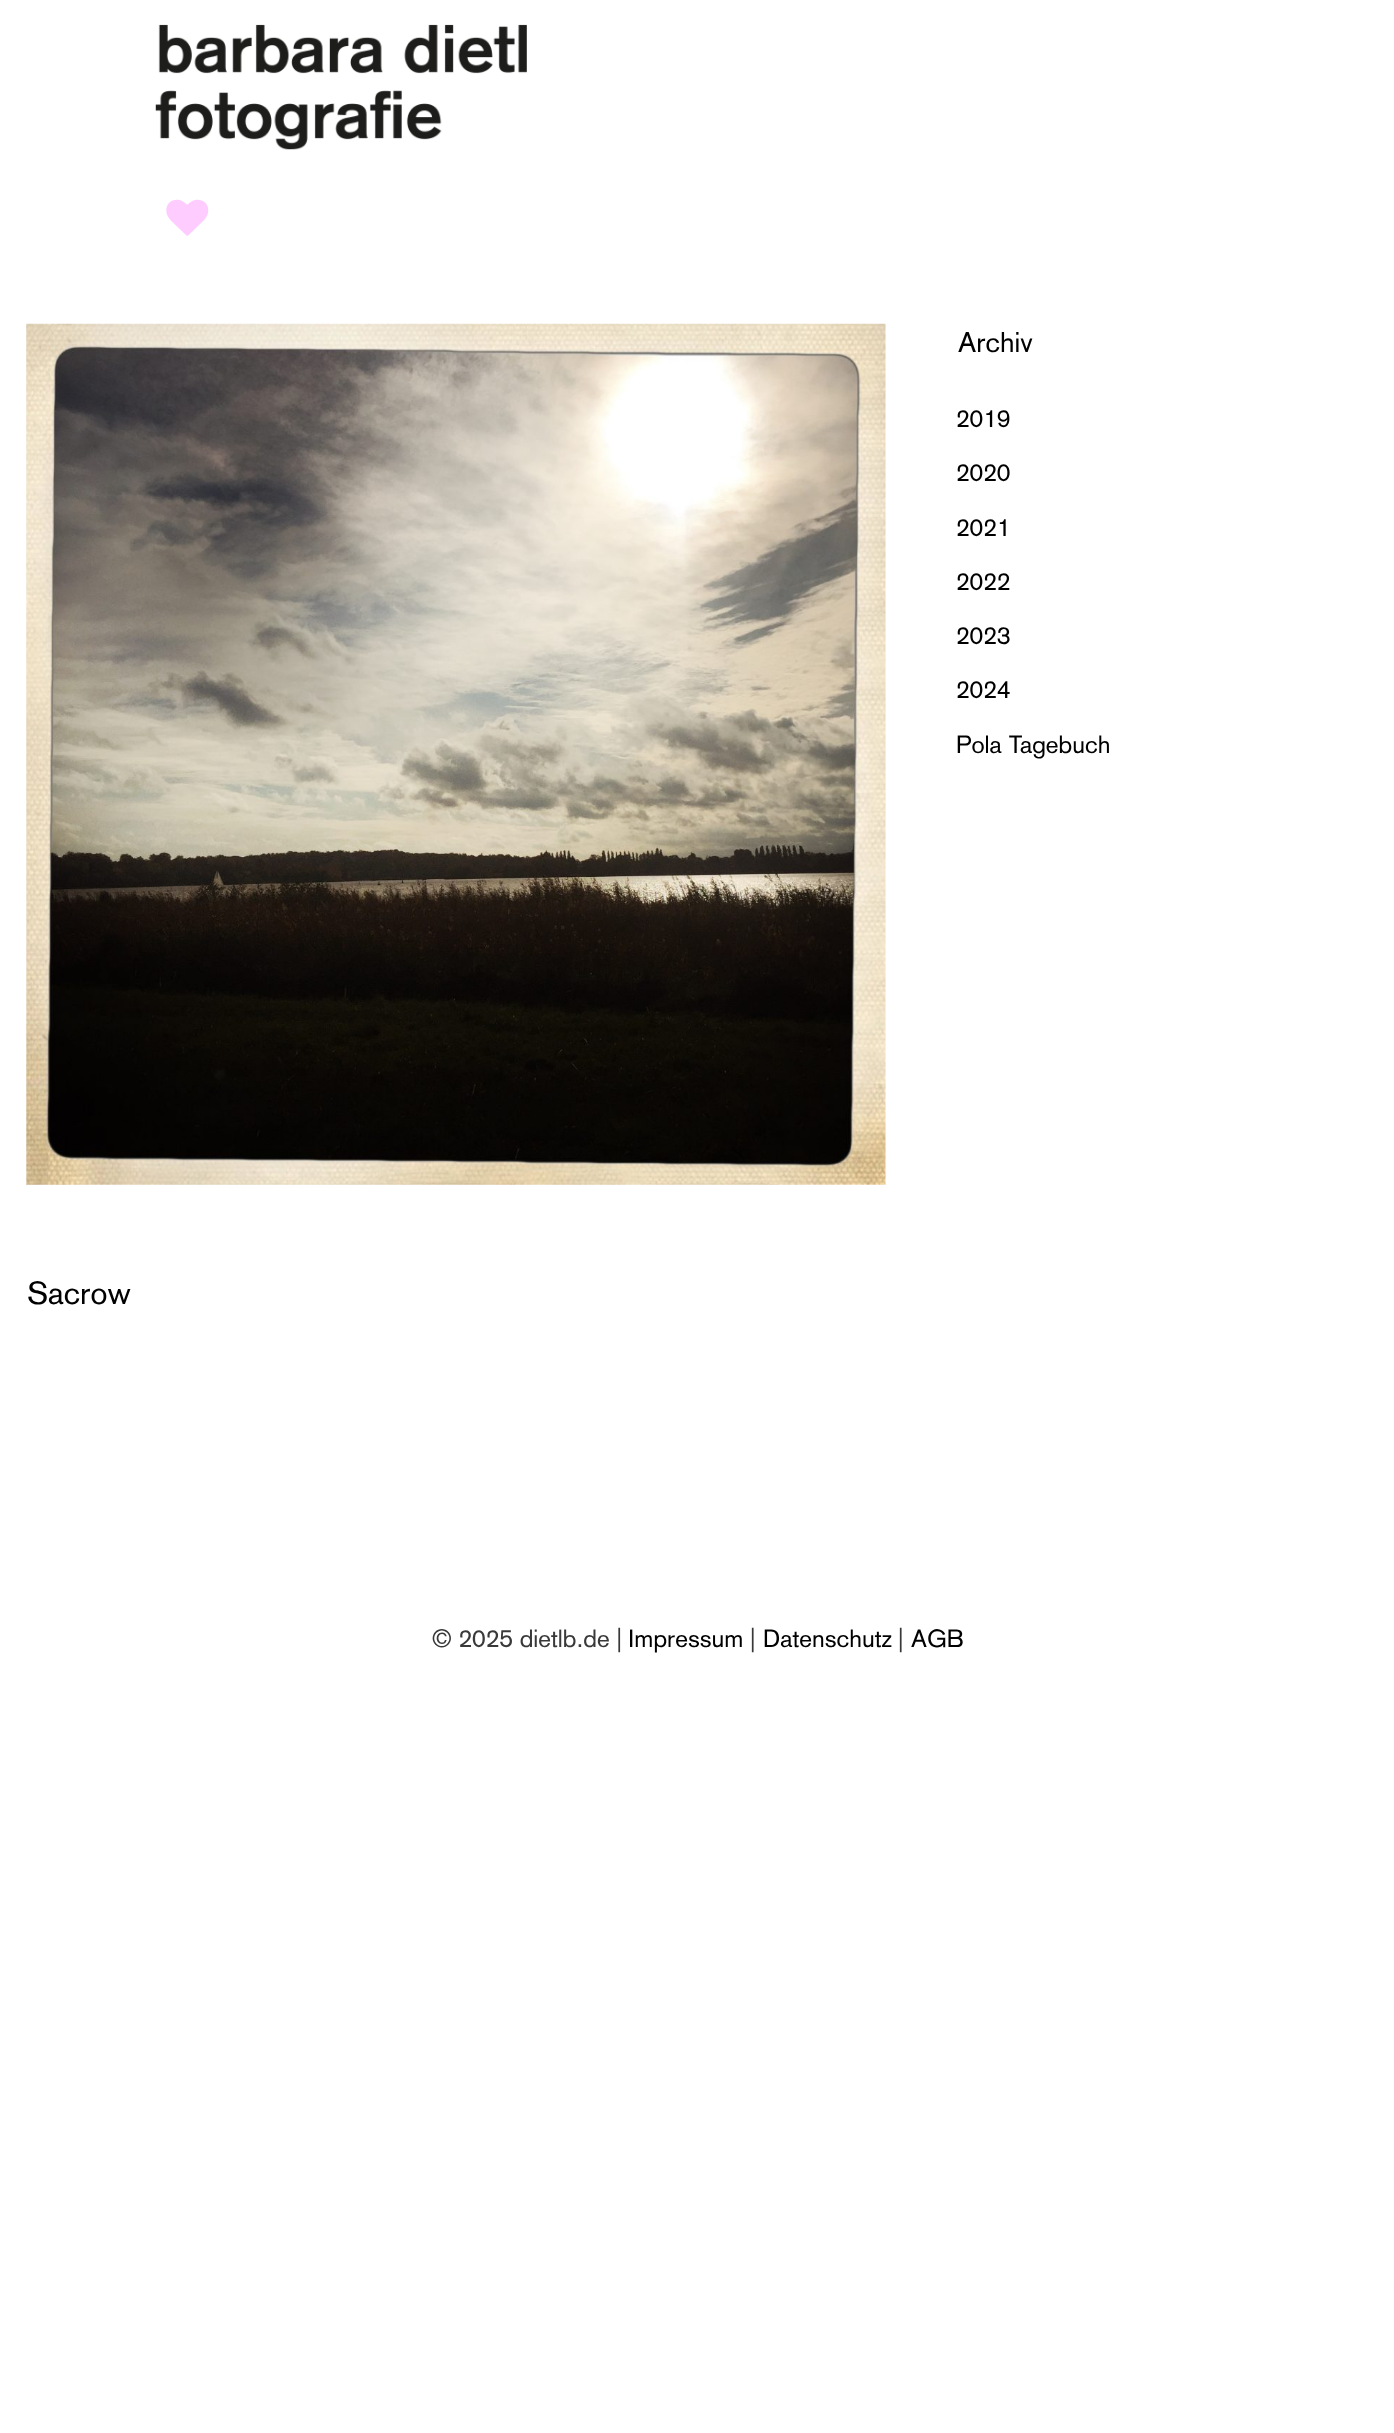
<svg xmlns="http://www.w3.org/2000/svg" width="1394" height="2433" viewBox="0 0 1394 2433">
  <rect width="100%" height="100%" fill="#ffffff"/>
  <image x="155" y="24" width="372" height="126" href="img1.png"/>
  <image x="166" y="199" width="43" height="37" href="img2.png"/>
  <text x="958" y="352" font-family="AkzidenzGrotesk" font-size="28" fill="#000000">Archiv</text>
  <text x="956" y="427" font-family="AkzidenzGrotesk" font-size="24.5" fill="#000000">2019</text>
  <text x="956" y="481" font-family="AkzidenzGrotesk" font-size="24.5" fill="#000000">2020</text>
  <text x="956" y="536" font-family="AkzidenzGrotesk" font-size="24.5" fill="#000000">2021</text>
  <text x="956" y="590" font-family="AkzidenzGrotesk" font-size="24.5" fill="#000000">2022</text>
  <text x="956" y="644" font-family="AkzidenzGrotesk" font-size="24.5" fill="#000000">2023</text>
  <text x="956" y="698" font-family="AkzidenzGrotesk" font-size="24.5" fill="#000000">2024</text>
  <text x="956" y="753" font-family="AkzidenzGrotesk" font-size="24.5" fill="#000000">Pola Tagebuch</text>
  <image x="26" y="323" width="860" height="862" href="img3.png"/>
  <text x="27" y="1304" font-family="AkzidenzGrotesk" font-size="31.5" fill="#000000">Sacrow</text>
  <text x="432" y="1647" font-family="AkzidenzGrotesk" font-size="24.5" fill="#393939">© 2025 dietlb.de |</text>
  <text x="628" y="1647" font-family="AkzidenzGrotesk" font-size="24.5" fill="#000000">Impressum</text>
  <text x="750" y="1647" font-family="AkzidenzGrotesk" font-size="24.5" fill="#393939">|</text>
  <text x="763" y="1647" font-family="AkzidenzGrotesk" font-size="24.5" fill="#000000">Datenschutz</text>
  <text x="898" y="1647" font-family="AkzidenzGrotesk" font-size="24.5" fill="#393939">|</text>
  <text x="911" y="1647" font-family="AkzidenzGrotesk" font-size="24.5" fill="#000000">AGB</text>
</svg>
